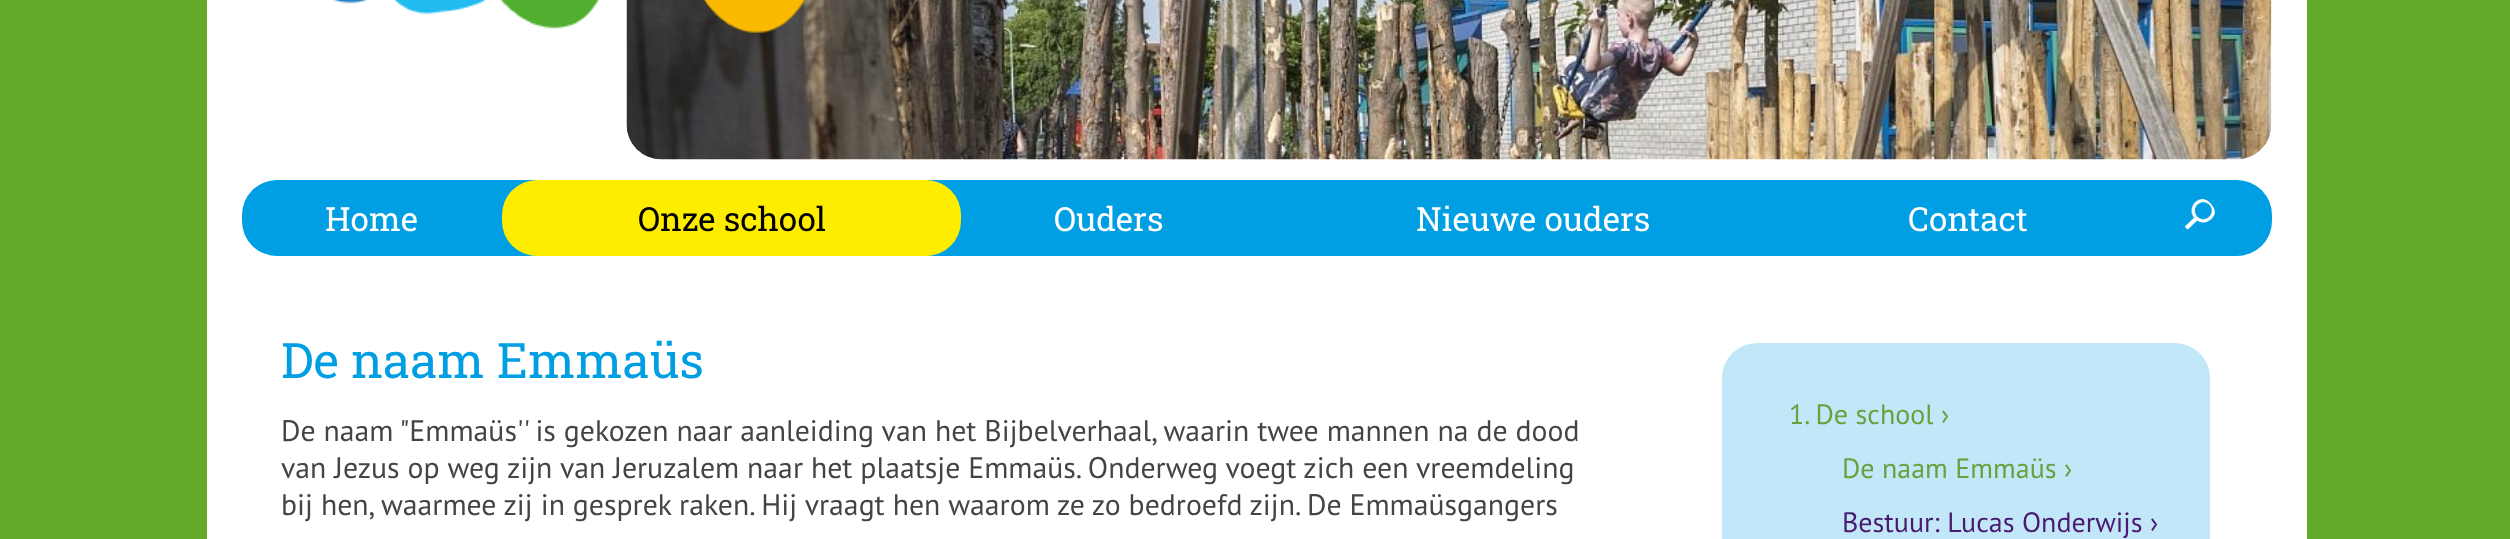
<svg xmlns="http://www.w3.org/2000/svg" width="2510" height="539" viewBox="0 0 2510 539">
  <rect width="100%" height="100%" fill="#63aa2a"/>
  <rect x="207" y="0" width="2100" height="539" fill="#ffffff"/>
  <image x="626" y="0" width="1646" height="160" href="img2.png"/>
  <image x="333" y="0" width="473" height="33" href="img1.png"/>
  <rect x="242" y="180" width="2030" height="76" rx="35" fill="#009ee3"/>
  <text x="325" y="231" font-family="Roboto Slab" font-size="33.25" fill="#ffffff">Home</text>
  <rect x="502" y="180" width="459" height="76" rx="35" fill="#ffed00"/>
  <text x="638" y="231" font-family="Roboto Slab" font-size="33.25" fill="#000000">Onze school</text>
  <text x="1054" y="231" font-family="Roboto Slab" font-size="33.25" fill="#ffffff">Ouders</text>
  <text x="1416" y="231" font-family="Roboto Slab" font-size="33.25" fill="#ffffff">Nieuwe ouders</text>
  <text x="1908" y="231" font-family="Roboto Slab" font-size="33.25" fill="#ffffff">Contact</text>
  <image x="2184" y="198" width="31" height="32" href="img3.png"/>
  <text x="281" y="378" font-family="Roboto Slab" font-size="49" fill="#009ee3">De naam Emmaüs</text>
  <text x="281" y="441" font-family="PT Sans" font-size="29.75" fill="#444444">De naam "Emmaüs'' is gekozen naar aanleiding van het Bijbelverhaal, waarin twee mannen na de dood</text>
  <text x="281" y="478" font-family="PT Sans" font-size="29.75" fill="#444444">van Jezus op weg zijn van Jeruzalem naar het plaatsje Emmaüs. Onderweg voegt zich een vreemdeling</text>
  <text x="281" y="515" font-family="PT Sans" font-size="29.75" fill="#444444">bij hen, waarmee zij in gesprek raken. Hij vraagt hen waarom ze zo bedroefd zijn. De Emmaüsgangers</text>
  <rect x="1722" y="343" width="488" height="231" rx="35" fill="#c2e7f8"/>
  <text x="1789" y="424" font-family="PT Sans" font-size="28" fill="#6aa03e">1. De school ›</text>
  <text x="1842" y="478" font-family="PT Sans" font-size="28" fill="#6aa03e">De naam Emmaüs ›</text>
  <text x="1842" y="532" font-family="PT Sans" font-size="28" fill="#4a1a71">Bestuur: Lucas Onderwijs ›</text>
</svg>
